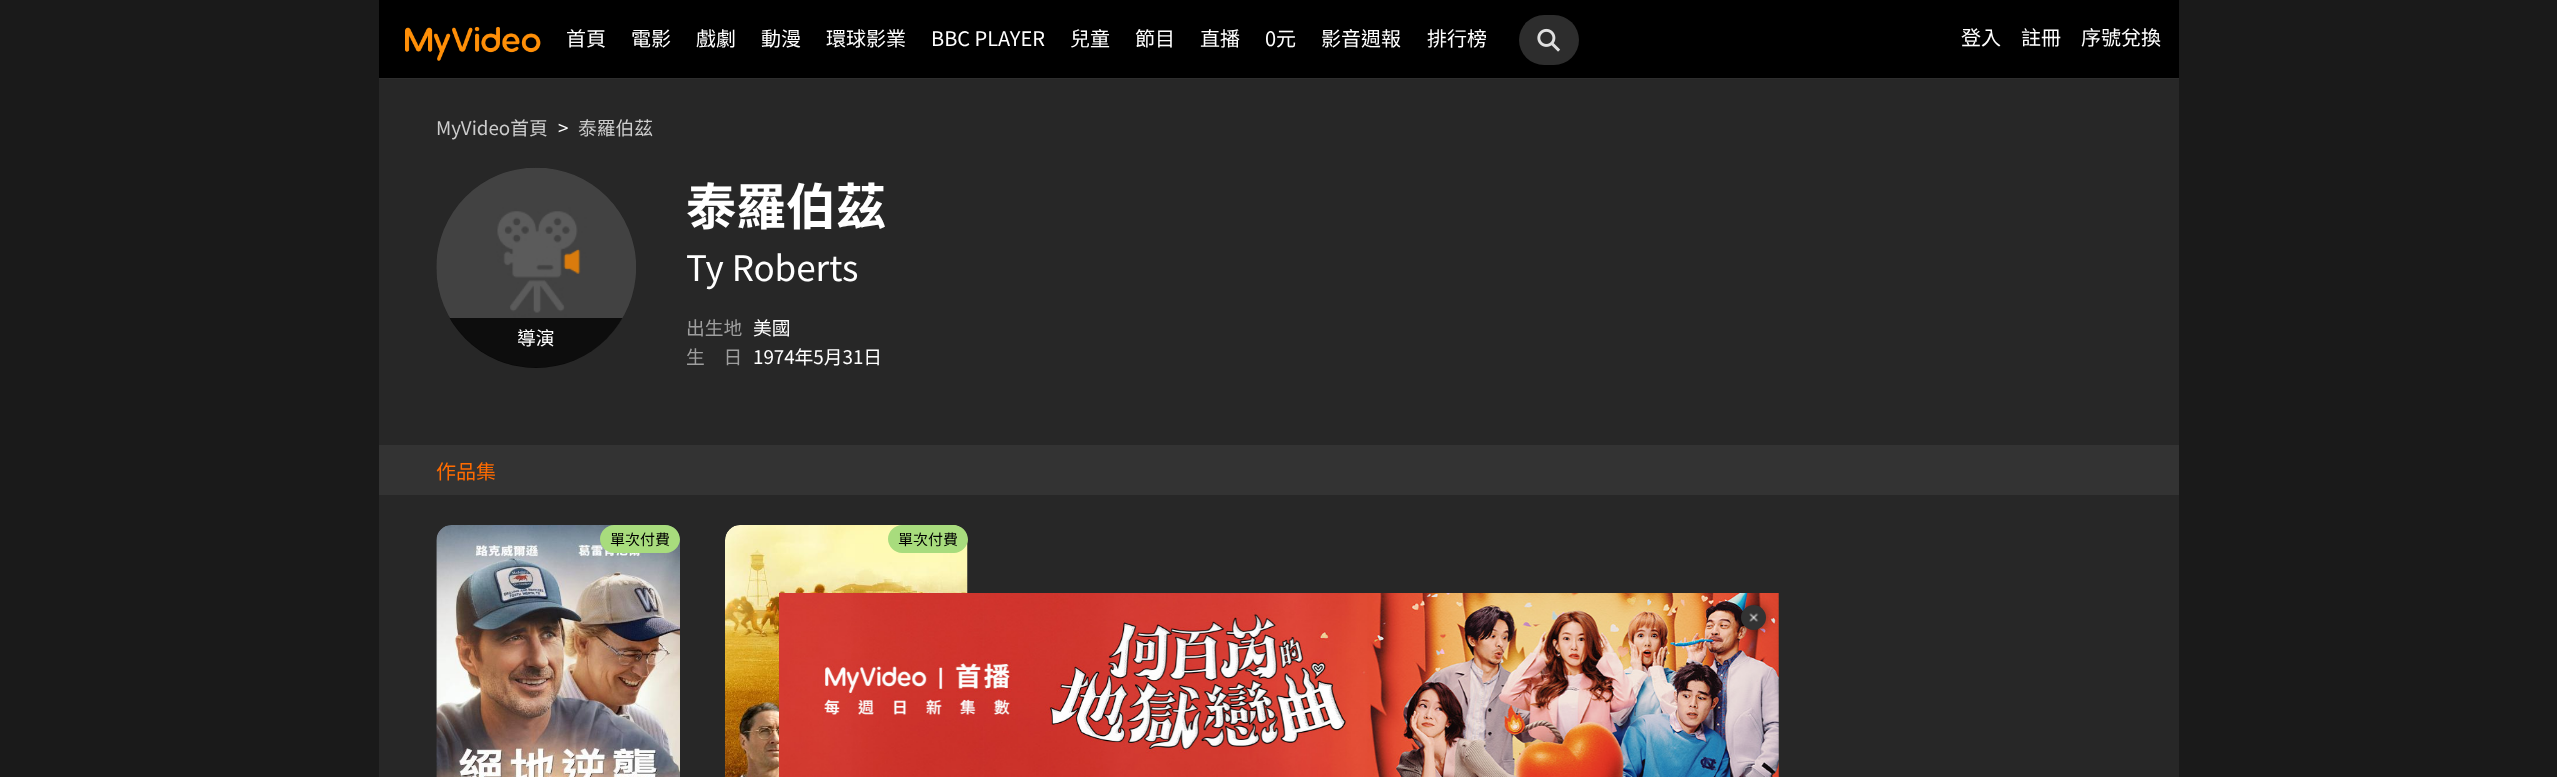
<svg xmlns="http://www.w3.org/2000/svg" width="2557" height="777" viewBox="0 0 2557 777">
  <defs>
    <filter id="blur1" x="-50%" y="-200%" width="200%" height="500%"><feGaussianBlur stdDeviation="6"/></filter>
    <clipPath id="clip1"><rect x="436" y="168" width="200" height="200" rx="100"/></clipPath>
  </defs>
  <rect width="100%" height="100%" fill="#1a1a1a"/>
  <rect x="379" y="0" width="1800" height="78" fill="#000000"/>
  <rect x="379" y="78" width="1800" height="1" fill="#2d2d2d"/>
  <image x="405" y="26" width="136" height="35" href="img1.png"/>
  <text x="566" y="46" font-family="Noto Sans TC" font-size="20" fill="#ffffff">首頁</text>
  <text x="631" y="46" font-family="Noto Sans TC" font-size="20" fill="#ffffff">電影</text>
  <text x="696" y="46" font-family="Noto Sans TC" font-size="20" fill="#ffffff">戲劇</text>
  <text x="761" y="46" font-family="Noto Sans TC" font-size="20" fill="#ffffff">動漫</text>
  <text x="826" y="46" font-family="Noto Sans TC" font-size="20" fill="#ffffff">環球影業</text>
  <text x="931" y="46" font-family="Noto Sans TC" font-size="20" fill="#ffffff">BBC PLAYER</text>
  <text x="1070" y="46" font-family="Noto Sans TC" font-size="20" fill="#ffffff">兒童</text>
  <text x="1135" y="46" font-family="Noto Sans TC" font-size="20" fill="#ffffff">節目</text>
  <text x="1200" y="46" font-family="Noto Sans TC" font-size="20" fill="#ffffff">直播</text>
  <text x="1265" y="46" font-family="Noto Sans TC" font-size="20" fill="#ffffff">0元</text>
  <text x="1321" y="46" font-family="Noto Sans TC" font-size="20" fill="#ffffff">影音週報</text>
  <text x="1427" y="46" font-family="Noto Sans TC" font-size="20" fill="#ffffff">排行榜</text>
  <rect x="1519" y="15" width="60" height="50" rx="25" fill="#2d2d2d"/>
  <image x="1537" y="28" width="24" height="24" href="img2.png"/>
  <text x="1961" y="45" font-family="Noto Sans TC" font-size="20" fill="#ffffff">登入</text>
  <text x="2021" y="45" font-family="Noto Sans TC" font-size="20" fill="#ffffff">註冊</text>
  <text x="2081" y="45" font-family="Noto Sans TC" font-size="20" fill="#ffffff">序號兌換</text>
  <rect x="379" y="79" width="1800" height="698" fill="#272727"/>
  <image x="725" y="525" width="243" height="252" href="img8.png"/>
  <image x="779" y="593" width="1000" height="184" href="img4.png"/>
  <rect x="1741" y="605" width="25" height="25" rx="12.5" fill="#000000" fill-opacity="0.5" filter="url(#blur1)"/>
  <circle cx="1753.5" cy="617.5" r="12.5" fill="#333333"/>
  <image x="1749" y="613" width="10" height="9" href="img3.png"/>
  <text x="436" y="135" font-family="Noto Sans TC" font-size="18.75" fill="#cccccc">MyVideo首頁</text>
  <text x="558" y="135" font-family="Noto Sans TC" font-size="18.75" fill="#ffffff">&gt;</text>
  <text x="578" y="135" font-family="Noto Sans TC" font-size="18.75" fill="#cccccc">泰羅伯茲</text>
  <image x="436" y="167" width="200" height="201" href="img5.png"/>
  <image x="436" y="167" width="200" height="201" href="img6.png"/>
  <g clip-path="url(#clip1)">
    <rect x="449" y="318" width="174" height="50" fill="#000000" fill-opacity="0.8"/>
  </g>
  <text x="517" y="345" font-family="Noto Sans TC" font-size="18.75" fill="#ffffff">導演</text>
  <text x="686" y="225" font-family="Noto Sans TC" font-size="50" font-weight="bold" fill="#ffffff">泰羅伯茲</text>
  <text x="686" y="281" font-family="Noto Sans TC" font-size="35" fill="#ffffff">Ty Roberts</text>
  <text x="686" y="335" font-family="Noto Sans TC" font-size="18.75" fill="#9e9e9e">出生地</text>
  <text x="753" y="335" font-family="Noto Sans TC" font-size="18.75" fill="#ffffff">美國</text>
  <text x="686" y="364" font-family="Noto Sans TC" font-size="18.75" fill="#9e9e9e">生 日</text>
  <text x="753" y="364" font-family="Noto Sans TC" font-size="18.75" fill="#ffffff">1974年5月31日</text>
  <rect x="379" y="445" width="1800" height="50" fill="#333333"/>
  <text x="436" y="479" font-family="Noto Sans TC" font-size="20" fill="#ff6b00">作品集</text>
  <image x="436" y="525" width="244" height="252" href="img7.png"/>
  <path d="M614 525H665C673.5 525 680 531.5 680 540V539C680 546.5 673.5 553 666 553H614C606.5 553 600 546.5 600 539C600 531.5 606.5 525 614 525Z" fill="#a8dc7d"/>
  <text x="610" y="545" font-family="Noto Sans TC" font-size="15" fill="#000000">單次付費</text>
  <path d="M902 525H953C961.5 525 968 531.5 968 540V539C968 546.5 961.5 553 954 553H902C894.5 553 888 546.5 888 539C888 531.5 894.5 525 902 525Z" fill="#a8dc7d"/>
  <text x="898" y="545" font-family="Noto Sans TC" font-size="15" fill="#000000">單次付費</text>
</svg>
